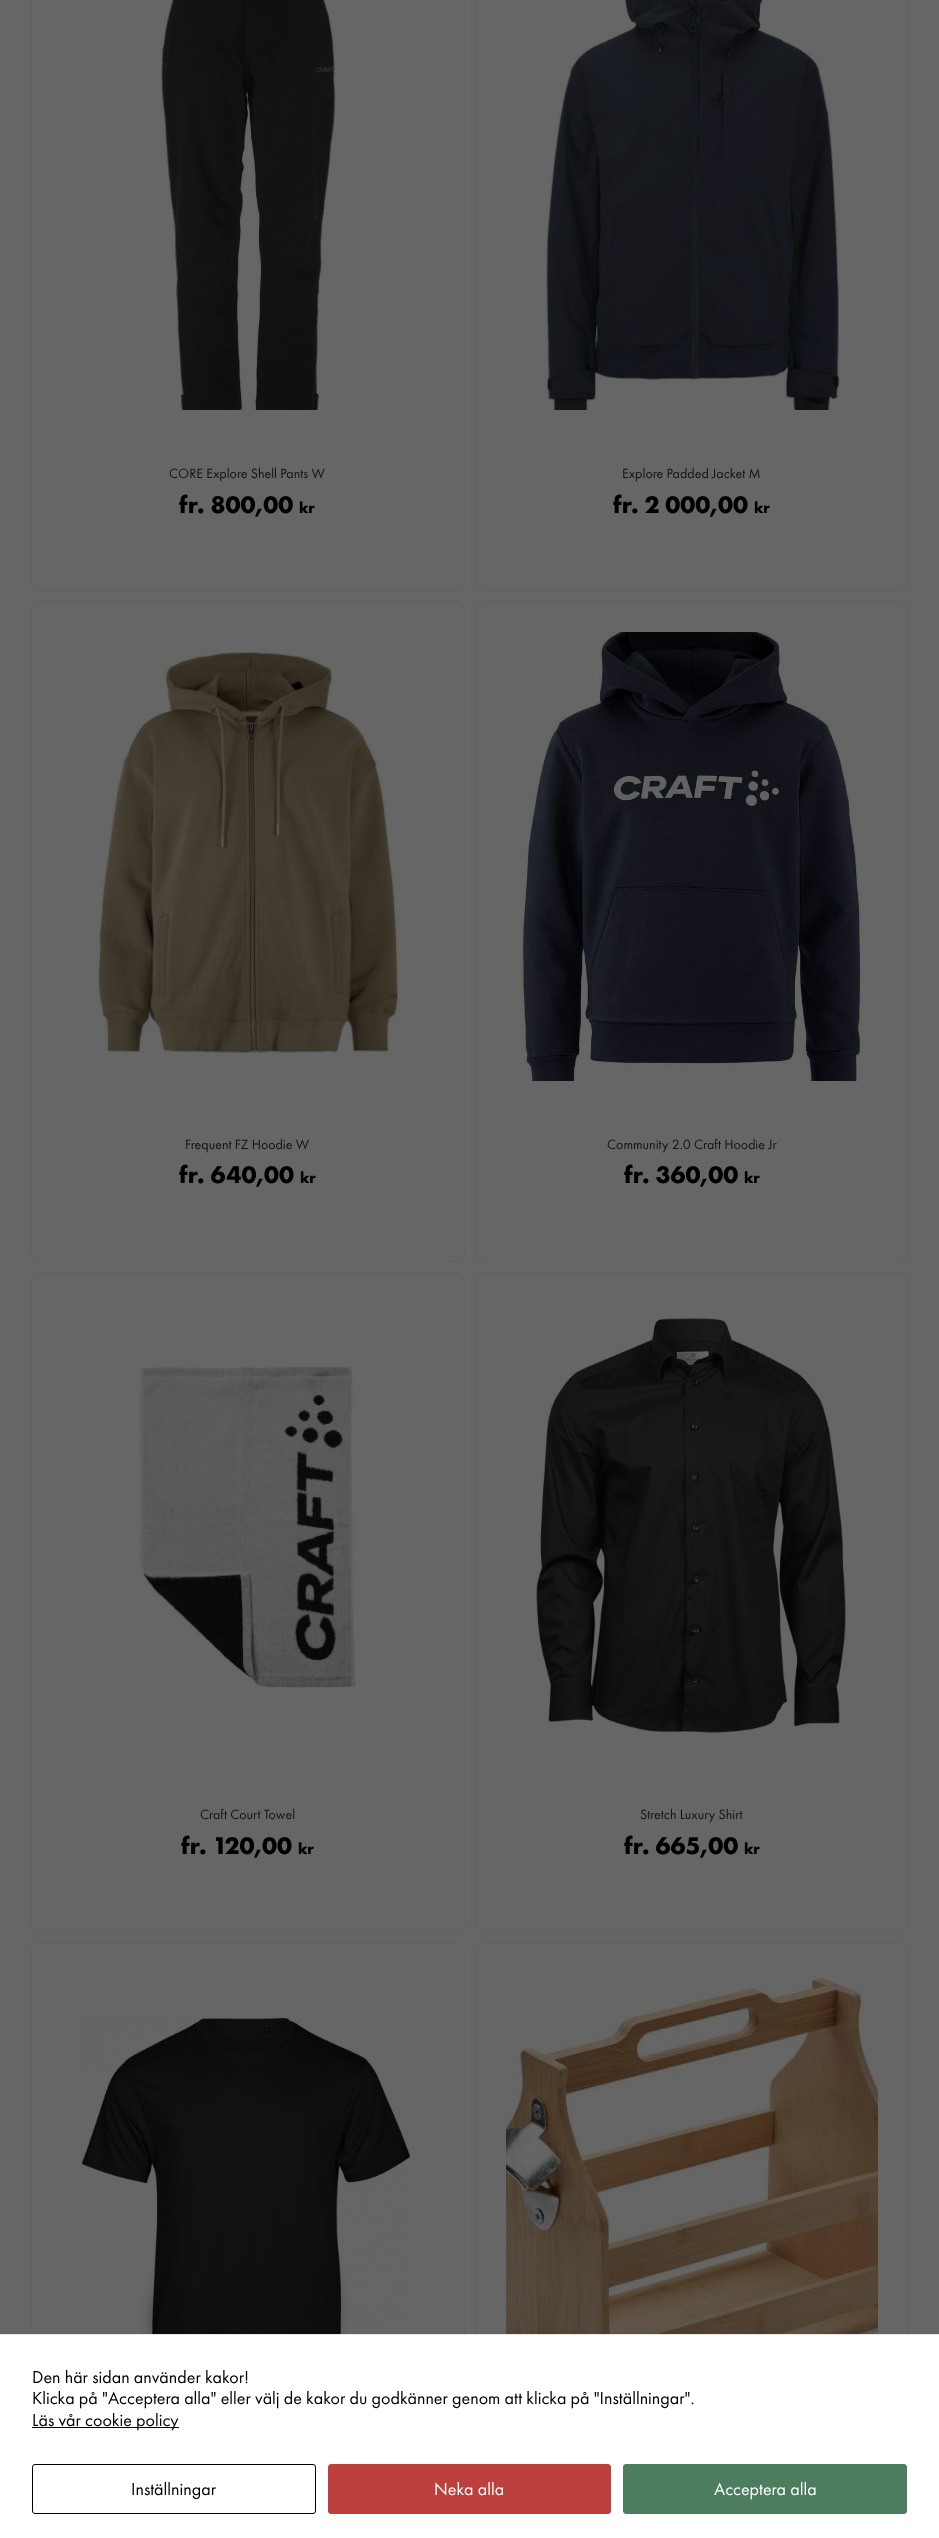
<svg xmlns="http://www.w3.org/2000/svg" width="939" height="2538" viewBox="0 0 939 2538">
  <rect width="100%" height="100%" fill="#666666"/>
  <rect x="30.5" y="-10.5" width="434" height="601" rx="9.5" fill="none" stroke="#5f6162"/>
  <image x="161" y="0" width="175" height="410" href="img1.png"/>
  <text x="169" y="478" font-family="Futura PT" font-size="14" fill="#11121a">CORE Explore Shell Pants W</text>
  <text x="179" y="513" font-family="Futura PT" font-size="25" font-weight="bold" fill="#000000">fr. 800,00</text>
  <text x="299" y="513" font-family="Futura PT" font-size="16" font-weight="bold" fill="#000000">kr</text>
  <rect x="475.5" y="-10.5" width="433" height="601" rx="9.5" fill="none" stroke="#5f6162"/>
  <image x="546" y="0" width="294" height="410" href="img2.png"/>
  <text x="622" y="478" font-family="Futura PT" font-size="14" fill="#11121a">Explore Padded Jacket M</text>
  <text x="613" y="513" font-family="Futura PT" font-size="25" font-weight="bold" fill="#000000">fr. 2 000,00</text>
  <text x="754" y="513" font-family="Futura PT" font-size="16" font-weight="bold" fill="#000000">kr</text>
  <rect x="30.5" y="601.5" width="434" height="660" rx="9.5" fill="none" stroke="#5f6162"/>
  <image x="94" y="648" width="307" height="406" href="img3.png"/>
  <text x="185" y="1149" font-family="Futura PT" font-size="14" fill="#11121a">Frequent FZ Hoodie W</text>
  <text x="179" y="1183" font-family="Futura PT" font-size="25" font-weight="bold" fill="#000000">fr. 640,00</text>
  <text x="300" y="1183" font-family="Futura PT" font-size="16" font-weight="bold" fill="#000000">kr</text>
  <rect x="475.5" y="601.5" width="433" height="660" rx="9.5" fill="none" stroke="#5f6162"/>
  <image x="518" y="632" width="347" height="449" href="img4.png"/>
  <text x="607" y="1149" font-family="Futura PT" font-size="14" fill="#11121a">Community 2.0 Craft Hoodie Jr</text>
  <text x="624" y="1183" font-family="Futura PT" font-size="25" font-weight="bold" fill="#000000">fr. 360,00</text>
  <text x="744" y="1183" font-family="Futura PT" font-size="16" font-weight="bold" fill="#000000">kr</text>
  <rect x="30.5" y="1272.5" width="434" height="659" rx="9.5" fill="none" stroke="#5f6162"/>
  <image x="139" y="1366" width="217" height="322" href="img5.png"/>
  <text x="200" y="1819" font-family="Futura PT" font-size="14" fill="#11121a">Craft Court Towel</text>
  <text x="181" y="1854" font-family="Futura PT" font-size="25" font-weight="bold" fill="#000000">fr. 120,00</text>
  <text x="298" y="1854" font-family="Futura PT" font-size="16" font-weight="bold" fill="#000000">kr</text>
  <rect x="475.5" y="1272.5" width="433" height="659" rx="9.5" fill="none" stroke="#5f6162"/>
  <image x="536" y="1318" width="310" height="416" href="img6.png"/>
  <text x="640" y="1819" font-family="Futura PT" font-size="14" fill="#11121a">Stretch Luxury Shirt</text>
  <text x="624" y="1854" font-family="Futura PT" font-size="25" font-weight="bold" fill="#000000">fr. 665,00</text>
  <text x="744" y="1854" font-family="Futura PT" font-size="16" font-weight="bold" fill="#000000">kr</text>
  <rect x="30.5" y="1942.5" width="434" height="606" rx="9.5" fill="none" stroke="#5f6162"/>
  <image x="81" y="2016" width="330" height="318" href="img7.png"/>
  <rect x="475.5" y="1942.5" width="433" height="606" rx="9.5" fill="none" stroke="#5f6162"/>
  <image x="506" y="1975" width="372" height="359" href="img8.png"/>
  <rect x="0" y="2335" width="939" height="203" fill="#ffffff"/>
  <rect x="0" y="2334" width="939" height="1" fill="#e6e6e6"/>
  <text x="32" y="2383" font-family="Futura PT" font-size="18" fill="#000000">Den här sidan använder kakor!</text>
  <text x="32" y="2404" font-family="Futura PT" font-size="18" fill="#000000">Klicka på "Acceptera alla" eller välj de kakor du godkänner genom att klicka på "Inställningar".</text>
  <rect x="32" y="2427" width="147" height="1" fill="#000000"/>
  <text x="32" y="2426" font-family="Futura PT" font-size="18" fill="#000000">Läs vår cookie policy</text>
  <rect x="32.5" y="2464.5" width="283" height="49" rx="2.5" fill="none" stroke="#000000"/>
  <text x="131" y="2495" font-family="Futura PT" font-size="18" fill="#000000">Inställningar</text>
  <rect x="328.5" y="2464.5" width="282" height="49" rx="2.5" fill="#bd403c" stroke="#bd403c"/>
  <text x="434" y="2495" font-family="Futura PT" font-size="18" fill="#ffffff">Neka alla</text>
  <rect x="623.5" y="2464.5" width="283" height="49" rx="2.5" fill="#4b7d5e" stroke="#4b7d5e"/>
  <text x="714" y="2495" font-family="Futura PT" font-size="18" fill="#ffffff">Acceptera alla</text>
</svg>
